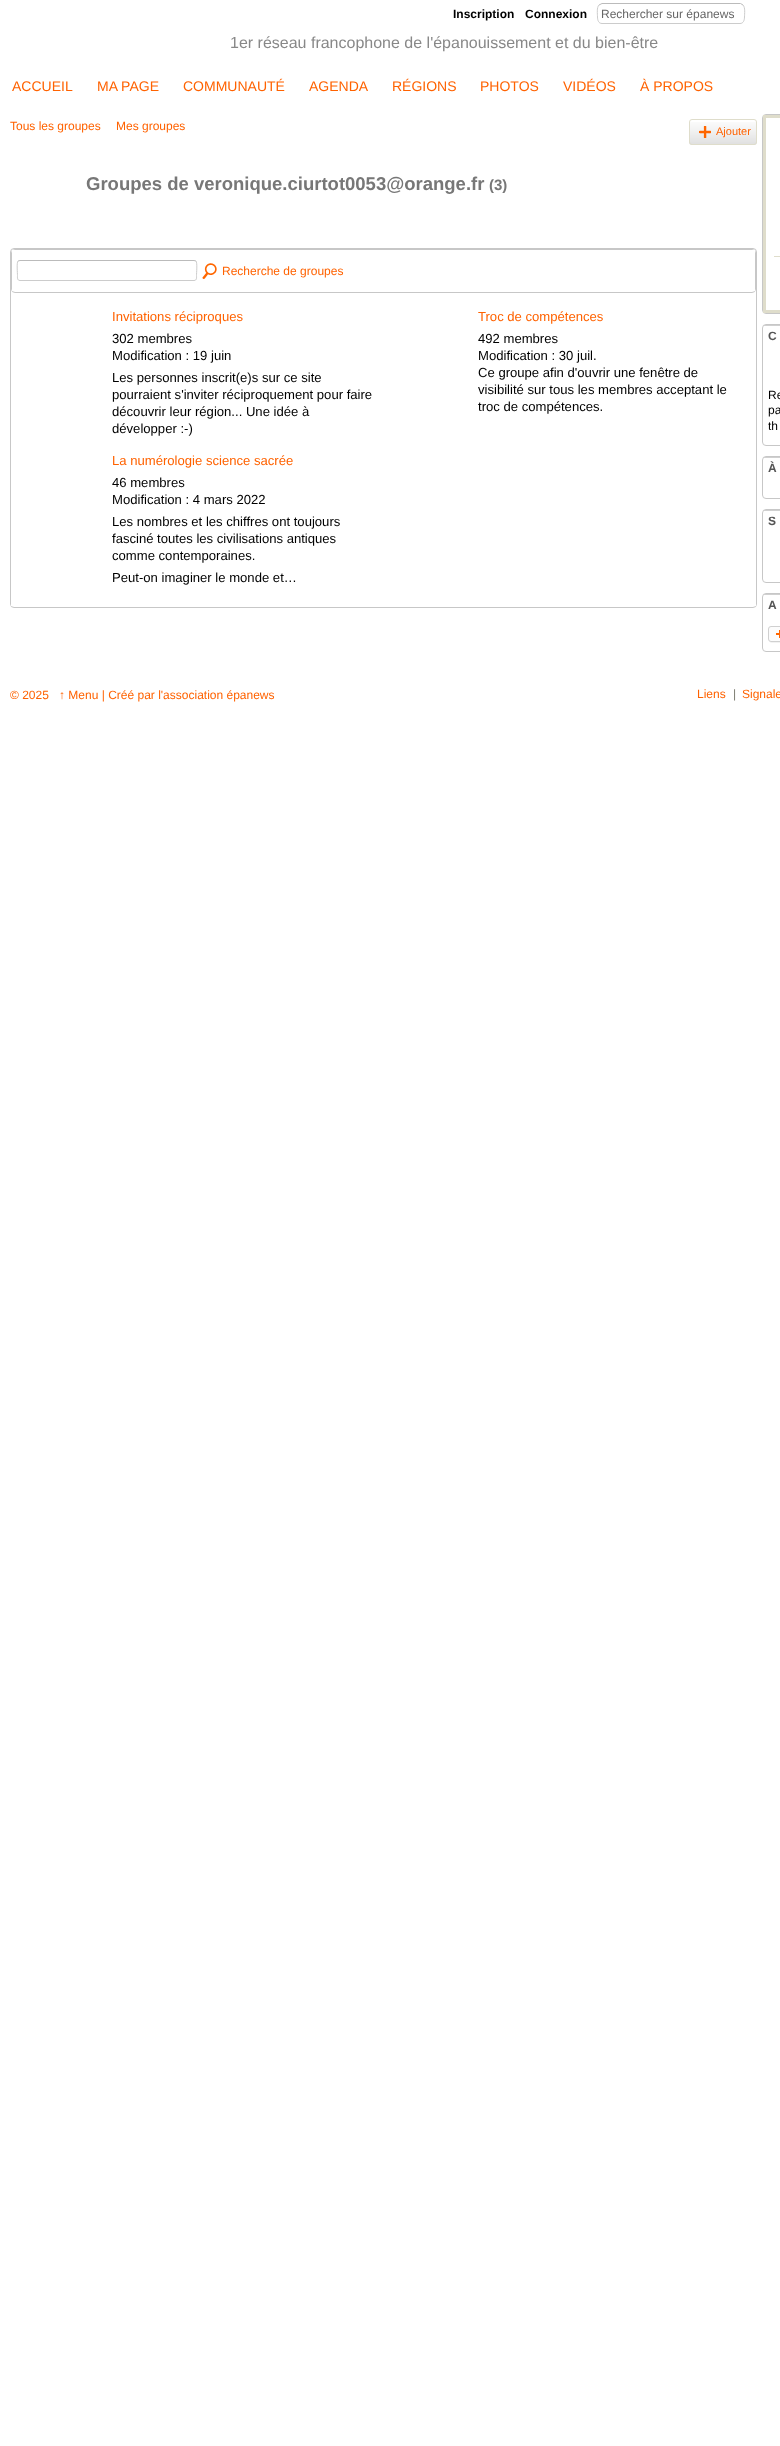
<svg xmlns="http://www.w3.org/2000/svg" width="780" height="2446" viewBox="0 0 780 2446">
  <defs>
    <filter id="blur1" x="-50%" y="-200%" width="200%" height="500%"><feGaussianBlur stdDeviation="0.5"/></filter>
  </defs>
  <rect width="100%" height="100%" fill="#ffffff"/>
  <text x="453" y="18" font-family="Liberation Sans" font-size="12" font-weight="bold" fill="#000000">Inscription</text>
  <text x="525" y="18" font-family="Liberation Sans" font-size="12" font-weight="bold" fill="#000000">Connexion</text>
  <path d="M599 5L602 3.5H740.5L743 5" fill="none" stroke="#bbbbbb"/>
  <path d="M743 5C745.5 7.5 744.5 14 744.5 17C744.5 20 743.5 23.5 740 23.5H602C598.5 23.5 597.5 20 597.5 17C597.5 14 596.5 7.5 599 5" fill="none" stroke="#cccccc"/>
  <text x="601" y="18" font-family="Liberation Sans" font-size="12" fill="#666666">Rechercher sur épanews</text>
  <text x="230" y="48" font-family="Liberation Sans" font-size="16" fill="#888888">1er réseau francophone de l'épanouissement et du bien-être</text>
  <text x="12" y="91" font-family="Liberation Sans" font-size="14" fill="#ff6200">ACCUEIL</text>
  <text x="97" y="91" font-family="Liberation Sans" font-size="14" fill="#ff6200">MA PAGE</text>
  <text x="183" y="91" font-family="Liberation Sans" font-size="14" fill="#ff6200">COMMUNAUTÉ</text>
  <text x="309" y="91" font-family="Liberation Sans" font-size="14" fill="#ff6200">AGENDA</text>
  <text x="392" y="91" font-family="Liberation Sans" font-size="14" fill="#ff6200">RÉGIONS</text>
  <text x="480" y="91" font-family="Liberation Sans" font-size="14" fill="#ff6200">PHOTOS</text>
  <text x="563" y="91" font-family="Liberation Sans" font-size="14" fill="#ff6200">VIDÉOS</text>
  <text x="640" y="91" font-family="Liberation Sans" font-size="14" fill="#ff6200">À PROPOS</text>
  <text x="10" y="130" font-family="Liberation Sans" font-size="12" fill="#ff6200">Tous les groupes</text>
  <text x="116" y="130" font-family="Liberation Sans" font-size="12" fill="#ff6200">Mes groupes</text>
  <image x="689" y="122" width="68" height="23" href="img1.png"/>
  <rect x="689.5" y="119.5" width="67" height="25" rx="2.5" fill="none" stroke="#dfddcb"/>
  <image x="699" y="126" width="12" height="12" href="img2.png"/>
  <text x="716" y="135" font-family="Liberation Sans" font-size="11" fill="#ff6200">Ajouter</text>
  <text x="86" y="190" font-family="Liberation Sans" font-size="18.5" font-weight="bold" fill="#777777">Groupes de veronique.ciurtot0053@orange.fr</text>
  <text x="489" y="190" font-family="Liberation Sans" font-size="15" font-weight="bold" fill="#777777">(3)</text>
  <rect x="10.5" y="248.5" width="746" height="359" rx="3.5" fill="none" stroke="#c7c7c7"/>
  <rect x="11.5" y="249.5" width="744" height="43" rx="3.5" fill="none" stroke="#c7c7c7"/>
  <rect x="12" y="250" width="743" height="41" fill="#ffffff"/>
  <path d="M18 261L20 260.5H194L196 261" fill="none" stroke="#bbbbbb"/>
  <path d="M196 261C197.5 263 196.5 273 196.5 275.5C196.5 277.5 197 280.5 194 280.5H20C17 280.5 17.5 277.5 17.5 275.5C17.5 273 16.5 263 18 261" fill="none" stroke="#cccccc"/>
  <image x="202" y="263" width="15" height="16" href="img3.png"/>
  <text x="222" y="275" font-family="Liberation Sans" font-size="12" fill="#ff6200">Recherche de groupes</text>
  <rect x="11" y="604" width="745" height="2" fill="#ffffff"/>
  <text x="112" y="321" font-family="Liberation Sans" font-size="13.1" fill="#ff6200">Invitations réciproques</text>
  <text x="112" y="343" font-family="Liberation Sans" font-size="13.1" fill="#000000">302 membres</text>
  <text x="112" y="360" font-family="Liberation Sans" font-size="13.1" fill="#000000">Modification : 19 juin</text>
  <text x="112" y="382" font-family="Liberation Sans" font-size="13.1" fill="#000000">Les personnes inscrit(e)s sur ce site</text>
  <text x="112" y="399" font-family="Liberation Sans" font-size="13.1" fill="#000000">pourraient s'inviter réciproquement pour faire</text>
  <text x="112" y="416" font-family="Liberation Sans" font-size="13.1" fill="#000000">découvrir leur région... Une idée à</text>
  <text x="112" y="433" font-family="Liberation Sans" font-size="13.1" fill="#000000">développer :-)</text>
  <text x="478" y="321" font-family="Liberation Sans" font-size="13.1" fill="#ff6200">Troc de compétences</text>
  <text x="478" y="343" font-family="Liberation Sans" font-size="13.1" fill="#000000">492 membres</text>
  <text x="478" y="360" font-family="Liberation Sans" font-size="13.1" fill="#000000">Modification : 30 juil.</text>
  <text x="478" y="377" font-family="Liberation Sans" font-size="13.1" fill="#000000">Ce groupe afin d'ouvrir une fenêtre de</text>
  <text x="478" y="394" font-family="Liberation Sans" font-size="13.1" fill="#000000">visibilité sur tous les membres acceptant le</text>
  <text x="478" y="411" font-family="Liberation Sans" font-size="13.1" fill="#000000">troc de compétences.</text>
  <text x="112" y="465" font-family="Liberation Sans" font-size="13.1" fill="#ff6200">La numérologie science sacrée</text>
  <text x="112" y="487" font-family="Liberation Sans" font-size="13.1" fill="#000000">46 membres</text>
  <text x="112" y="504" font-family="Liberation Sans" font-size="13.1" fill="#000000">Modification : 4 mars 2022</text>
  <text x="112" y="526" font-family="Liberation Sans" font-size="13.1" fill="#000000">Les nombres et les chiffres ont toujours</text>
  <text x="112" y="543" font-family="Liberation Sans" font-size="13.1" fill="#000000">fasciné toutes les civilisations antiques</text>
  <text x="112" y="560" font-family="Liberation Sans" font-size="13.1" fill="#000000">comme contemporaines.</text>
  <text x="112" y="582" font-family="Liberation Sans" font-size="13.1" fill="#000000">Peut-on imaginer le monde et…</text>
  <rect x="762.5" y="114.5" width="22" height="199" rx="3.5" fill="none" stroke="#c7c7c7"/>
  <rect x="764.5" y="116.5" width="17" height="195" fill="none" stroke="#dfddcb" stroke-width="3"/>
  <rect x="774" y="256" width="6" height="1" fill="#dfddcb"/>
  <rect x="762.5" y="324.5" width="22" height="121" rx="3.5" fill="none" stroke="#c7c7c7"/>
  <rect x="763" y="325" width="17" height="1" fill="#d0d0d0"/>
  <text x="768" y="340" font-family="Liberation Sans" font-size="12" font-weight="bold" letter-spacing="1" fill="#555555">C</text>
  <text x="768" y="399" word-spacing="11" font-family="Liberation Sans" font-size="12" fill="#000000">Re</text>
  <text x="768" y="414" word-spacing="2" font-family="Liberation Sans" font-size="12" fill="#000000">pa</text>
  <text x="768" y="430" font-family="Liberation Sans" font-size="12" fill="#000000">th</text>
  <rect x="762.5" y="456.5" width="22" height="42" rx="3.5" fill="none" stroke="#c7c7c7"/>
  <rect x="763" y="457" width="17" height="1" fill="#d0d0d0"/>
  <text x="768" y="472" font-family="Liberation Sans" font-size="12" font-weight="bold" letter-spacing="1" fill="#555555">À</text>
  <rect x="762.5" y="509.5" width="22" height="73" rx="3.5" fill="none" stroke="#c7c7c7"/>
  <rect x="763" y="510" width="17" height="1" fill="#d0d0d0"/>
  <text x="768" y="525" font-family="Liberation Sans" font-size="12" font-weight="bold" letter-spacing="1" fill="#555555">S</text>
  <rect x="762.5" y="593.5" width="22" height="58" rx="3.5" fill="none" stroke="#c7c7c7"/>
  <rect x="763" y="594" width="17" height="1" fill="#d0d0d0"/>
  <text x="768" y="609" font-family="Liberation Sans" font-size="12" font-weight="bold" letter-spacing="1" fill="#555555">A</text>
  <rect x="769" y="627" width="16" height="16" rx="3" fill="#f2f2f2" filter="url(#blur1)"/>
  <rect x="768" y="626" width="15" height="16" rx="3" fill="#fcfcfc"/>
  <image x="776" y="630" width="4" height="8" href="img4.png"/>
  <rect x="768.5" y="626.5" width="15" height="15" rx="2.5" fill="none" stroke="#d0d0d0"/>
  <text x="10" y="699" font-family="Liberation Sans" font-size="12" fill="#ff6200">© 2025</text>
  <text x="59" y="699" font-family="Liberation Sans" font-size="12" fill="#ff6200">↑ Menu | Créé par l'association épanews</text>
  <text x="697" y="698" font-family="Liberation Sans" font-size="12" fill="#ff6200">Liens</text>
  <text x="733" y="698" font-family="Liberation Sans" font-size="12" fill="#7b7b6f">|</text>
  <text x="742" y="698" font-family="Liberation Sans" font-size="12" fill="#ff6200">Signale</text>
</svg>
